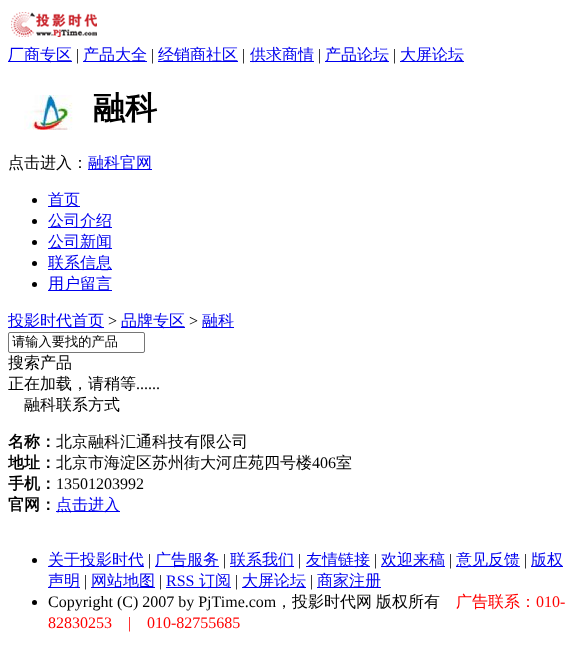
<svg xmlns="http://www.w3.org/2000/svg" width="580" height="658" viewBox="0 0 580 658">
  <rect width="100%" height="100%" fill="#ffffff"/>
  <image x="11" y="12" width="86" height="25" href="img1.png"/>
  <rect x="8" y="61" width="64" height="1" fill="#0000ee"/>
  <text x="8" y="60" font-family="WenQuanYi Zen Hei" font-size="16" font-weight="500" fill="#0000ee">厂商专区</text>
  <text x="76" y="60" font-family="Liberation Serif" font-size="16" fill="#000000">|</text>
  <rect x="83" y="61" width="64" height="1" fill="#0000ee"/>
  <text x="83" y="60" font-family="WenQuanYi Zen Hei" font-size="16" font-weight="500" fill="#0000ee">产品大全</text>
  <text x="151" y="60" font-family="Liberation Serif" font-size="16" fill="#000000">|</text>
  <rect x="158" y="61" width="80" height="1" fill="#0000ee"/>
  <text x="158" y="60" font-family="WenQuanYi Zen Hei" font-size="16" font-weight="500" fill="#0000ee">经销商社区</text>
  <text x="242" y="60" font-family="Liberation Serif" font-size="16" fill="#000000">|</text>
  <rect x="250" y="61" width="64" height="1" fill="#0000ee"/>
  <text x="250" y="60" font-family="WenQuanYi Zen Hei" font-size="16" font-weight="500" fill="#0000ee">供求商情</text>
  <text x="318" y="60" font-family="Liberation Serif" font-size="16" fill="#000000">|</text>
  <rect x="325" y="61" width="64" height="1" fill="#0000ee"/>
  <text x="325" y="60" font-family="WenQuanYi Zen Hei" font-size="16" font-weight="500" fill="#0000ee">产品论坛</text>
  <text x="393" y="60" font-family="Liberation Serif" font-size="16" fill="#000000">|</text>
  <rect x="400" y="61" width="64" height="1" fill="#0000ee"/>
  <text x="400" y="60" font-family="WenQuanYi Zen Hei" font-size="16" font-weight="500" fill="#0000ee">大屏论坛</text>
  <image x="24" y="95" width="49" height="35" href="img2.png"/>
  <text x="93" y="119" font-family="WenQuanYi Zen Hei" font-size="32" font-weight="bold" fill="#000000">融科</text>
  <text x="8" y="168" font-family="WenQuanYi Zen Hei" font-size="16" font-weight="500" fill="#000000">点击进入：</text>
  <rect x="88" y="169" width="64" height="1" fill="#0000ee"/>
  <text x="88" y="168" font-family="WenQuanYi Zen Hei" font-size="16" font-weight="500" fill="#0000ee">融科官网</text>
  <circle cx="34.5" cy="200.5" r="2.5" fill="#000000"/>
  <rect x="48" y="206" width="32" height="1" fill="#0000ee"/>
  <text x="48" y="205" font-family="WenQuanYi Zen Hei" font-size="16" font-weight="500" fill="#0000ee">首页</text>
  <circle cx="34.5" cy="221.5" r="2.5" fill="#000000"/>
  <rect x="48" y="227" width="64" height="1" fill="#0000ee"/>
  <text x="48" y="226" font-family="WenQuanYi Zen Hei" font-size="16" font-weight="500" fill="#0000ee">公司介绍</text>
  <circle cx="34.5" cy="242.5" r="2.5" fill="#000000"/>
  <rect x="48" y="248" width="64" height="1" fill="#0000ee"/>
  <text x="48" y="247" font-family="WenQuanYi Zen Hei" font-size="16" font-weight="500" fill="#0000ee">公司新闻</text>
  <circle cx="34.5" cy="263.5" r="2.5" fill="#000000"/>
  <rect x="48" y="269" width="64" height="1" fill="#0000ee"/>
  <text x="48" y="268" font-family="WenQuanYi Zen Hei" font-size="16" font-weight="500" fill="#0000ee">联系信息</text>
  <circle cx="34.5" cy="284.5" r="2.5" fill="#000000"/>
  <rect x="48" y="290" width="64" height="1" fill="#0000ee"/>
  <text x="48" y="289" font-family="WenQuanYi Zen Hei" font-size="16" font-weight="500" fill="#0000ee">用户留言</text>
  <rect x="8" y="327" width="96" height="1" fill="#0000ee"/>
  <text x="8" y="326" font-family="WenQuanYi Zen Hei" font-size="16" font-weight="500" fill="#0000ee">投影时代首页</text>
  <text x="108" y="326" font-family="Liberation Serif" font-size="16" fill="#000000">&gt;</text>
  <rect x="121" y="327" width="64" height="1" fill="#0000ee"/>
  <text x="121" y="326" font-family="WenQuanYi Zen Hei" font-size="16" font-weight="500" fill="#0000ee">品牌专区</text>
  <text x="189" y="326" font-family="Liberation Serif" font-size="16" fill="#000000">&gt;</text>
  <rect x="202" y="327" width="32" height="1" fill="#0000ee"/>
  <text x="202" y="326" font-family="WenQuanYi Zen Hei" font-size="16" font-weight="500" fill="#0000ee">融科</text>
  <rect x="8.5" y="332.5" width="136" height="20" rx="1.5" fill="none" stroke="#767676"/>
  <text x="12" y="346" font-family="WenQuanYi Zen Hei" font-size="13.25" font-weight="500" fill="#000000">请输入要找的产品</text>
  <text x="8" y="368" font-family="WenQuanYi Zen Hei" font-size="16" font-weight="500" fill="#000000">搜索产品</text>
  <text x="8" y="389" font-family="WenQuanYi Zen Hei" font-size="16" font-weight="500" fill="#000000">正在加载，请稍等</text>
  <text x="136" y="389" font-family="Liberation Serif" font-size="16" fill="#000000">......</text>
  <text x="24" y="410" font-family="WenQuanYi Zen Hei" font-size="16" font-weight="500" fill="#000000">融科联系方式</text>
  <text x="8" y="447" font-family="WenQuanYi Zen Hei" font-size="16" font-weight="bold" fill="#000000">名称：</text>
  <text x="56" y="447" font-family="WenQuanYi Zen Hei" font-size="16" font-weight="500" fill="#000000">北京融科汇通科技有限公司</text>
  <text x="8" y="468" font-family="WenQuanYi Zen Hei" font-size="16" font-weight="bold" fill="#000000">地址：</text>
  <text x="56" y="468" font-family="WenQuanYi Zen Hei" font-size="16" font-weight="500" fill="#000000">北京市海淀区苏州街大河庄苑四号楼</text>
  <text x="312" y="468" font-family="Liberation Serif" font-size="16" fill="#000000">406</text>
  <text x="336" y="468" font-family="WenQuanYi Zen Hei" font-size="16" font-weight="500" fill="#000000">室</text>
  <text x="8" y="489" font-family="WenQuanYi Zen Hei" font-size="16" font-weight="bold" fill="#000000">手机：</text>
  <text x="56" y="489" font-family="Liberation Serif" font-size="16" fill="#000000">13501203992</text>
  <text x="8" y="510" font-family="WenQuanYi Zen Hei" font-size="16" font-weight="bold" fill="#000000">官网：</text>
  <rect x="56" y="511" width="64" height="1" fill="#0000ee"/>
  <text x="56" y="510" font-family="WenQuanYi Zen Hei" font-size="16" font-weight="500" fill="#0000ee">点击进入</text>
  <circle cx="34.5" cy="560.5" r="2.5" fill="#000000"/>
  <rect x="48" y="566" width="96" height="1" fill="#0000ee"/>
  <text x="48" y="565" font-family="WenQuanYi Zen Hei" font-size="16" font-weight="500" fill="#0000ee">关于投影时代</text>
  <text x="148" y="565" font-family="Liberation Serif" font-size="16" fill="#000000">|</text>
  <rect x="155" y="566" width="64" height="1" fill="#0000ee"/>
  <text x="155" y="565" font-family="WenQuanYi Zen Hei" font-size="16" font-weight="500" fill="#0000ee">广告服务</text>
  <text x="223" y="565" font-family="Liberation Serif" font-size="16" fill="#000000">|</text>
  <rect x="230" y="566" width="64" height="1" fill="#0000ee"/>
  <text x="230" y="565" font-family="WenQuanYi Zen Hei" font-size="16" font-weight="500" fill="#0000ee">联系我们</text>
  <text x="298" y="565" font-family="Liberation Serif" font-size="16" fill="#000000">|</text>
  <rect x="306" y="566" width="64" height="1" fill="#0000ee"/>
  <text x="306" y="565" font-family="WenQuanYi Zen Hei" font-size="16" font-weight="500" fill="#0000ee">友情链接</text>
  <text x="374" y="565" font-family="Liberation Serif" font-size="16" fill="#000000">|</text>
  <rect x="381" y="566" width="64" height="1" fill="#0000ee"/>
  <text x="381" y="565" font-family="WenQuanYi Zen Hei" font-size="16" font-weight="500" fill="#0000ee">欢迎来稿</text>
  <text x="449" y="565" font-family="Liberation Serif" font-size="16" fill="#000000">|</text>
  <rect x="456" y="566" width="64" height="1" fill="#0000ee"/>
  <text x="456" y="565" font-family="WenQuanYi Zen Hei" font-size="16" font-weight="500" fill="#0000ee">意见反馈</text>
  <text x="524" y="565" font-family="Liberation Serif" font-size="16" fill="#000000">|</text>
  <rect x="531" y="566" width="32" height="1" fill="#0000ee"/>
  <text x="531" y="565" font-family="WenQuanYi Zen Hei" font-size="16" font-weight="500" fill="#0000ee">版权</text>
  <rect x="48" y="587" width="32" height="1" fill="#0000ee"/>
  <text x="48" y="586" font-family="WenQuanYi Zen Hei" font-size="16" font-weight="500" fill="#0000ee">声明</text>
  <text x="84" y="586" font-family="Liberation Serif" font-size="16" fill="#000000">|</text>
  <rect x="91" y="587" width="64" height="1" fill="#0000ee"/>
  <text x="91" y="586" font-family="WenQuanYi Zen Hei" font-size="16" font-weight="500" fill="#0000ee">网站地图</text>
  <text x="159" y="586" font-family="Liberation Serif" font-size="16" fill="#000000">|</text>
  <text x="166" y="586" font-family="Liberation Serif" font-size="16" fill="#0000ee">RSS</text>
  <rect x="166" y="587" width="65" height="1" fill="#0000ee"/>
  <text x="199" y="586" font-family="WenQuanYi Zen Hei" font-size="16" font-weight="500" fill="#0000ee">订阅</text>
  <text x="235" y="586" font-family="Liberation Serif" font-size="16" fill="#000000">|</text>
  <rect x="242" y="587" width="64" height="1" fill="#0000ee"/>
  <text x="242" y="586" font-family="WenQuanYi Zen Hei" font-size="16" font-weight="500" fill="#0000ee">大屏论坛</text>
  <text x="310" y="586" font-family="Liberation Serif" font-size="16" fill="#000000">|</text>
  <rect x="317" y="587" width="64" height="1" fill="#0000ee"/>
  <text x="317" y="586" font-family="WenQuanYi Zen Hei" font-size="16" font-weight="500" fill="#0000ee">商家注册</text>
  <circle cx="34.5" cy="602.5" r="2.5" fill="#000000"/>
  <text x="48" y="607" font-family="Liberation Serif" font-size="16" fill="#000000">Copyright (C) 2007 by PjTime.com</text>
  <text x="276" y="607" font-family="WenQuanYi Zen Hei" font-size="16" font-weight="500" fill="#000000">，投影时代网</text>
  <text x="376" y="607" font-family="WenQuanYi Zen Hei" font-size="16" font-weight="500" fill="#000000">版权所有</text>
  <text x="456" y="607" font-family="WenQuanYi Zen Hei" font-size="16" font-weight="500" fill="#ff0000">广告联系：</text>
  <text x="536" y="607" font-family="Liberation Serif" font-size="16" fill="#ff0000">010-</text>
  <text x="48" y="628" font-family="Liberation Serif" font-size="16" fill="#ff0000">82830253</text>
  <text x="128" y="628" font-family="Liberation Serif" font-size="16" fill="#ff0000">|</text>
  <text x="147" y="628" font-family="Liberation Serif" font-size="16" fill="#ff0000">010-82755685</text>
</svg>
